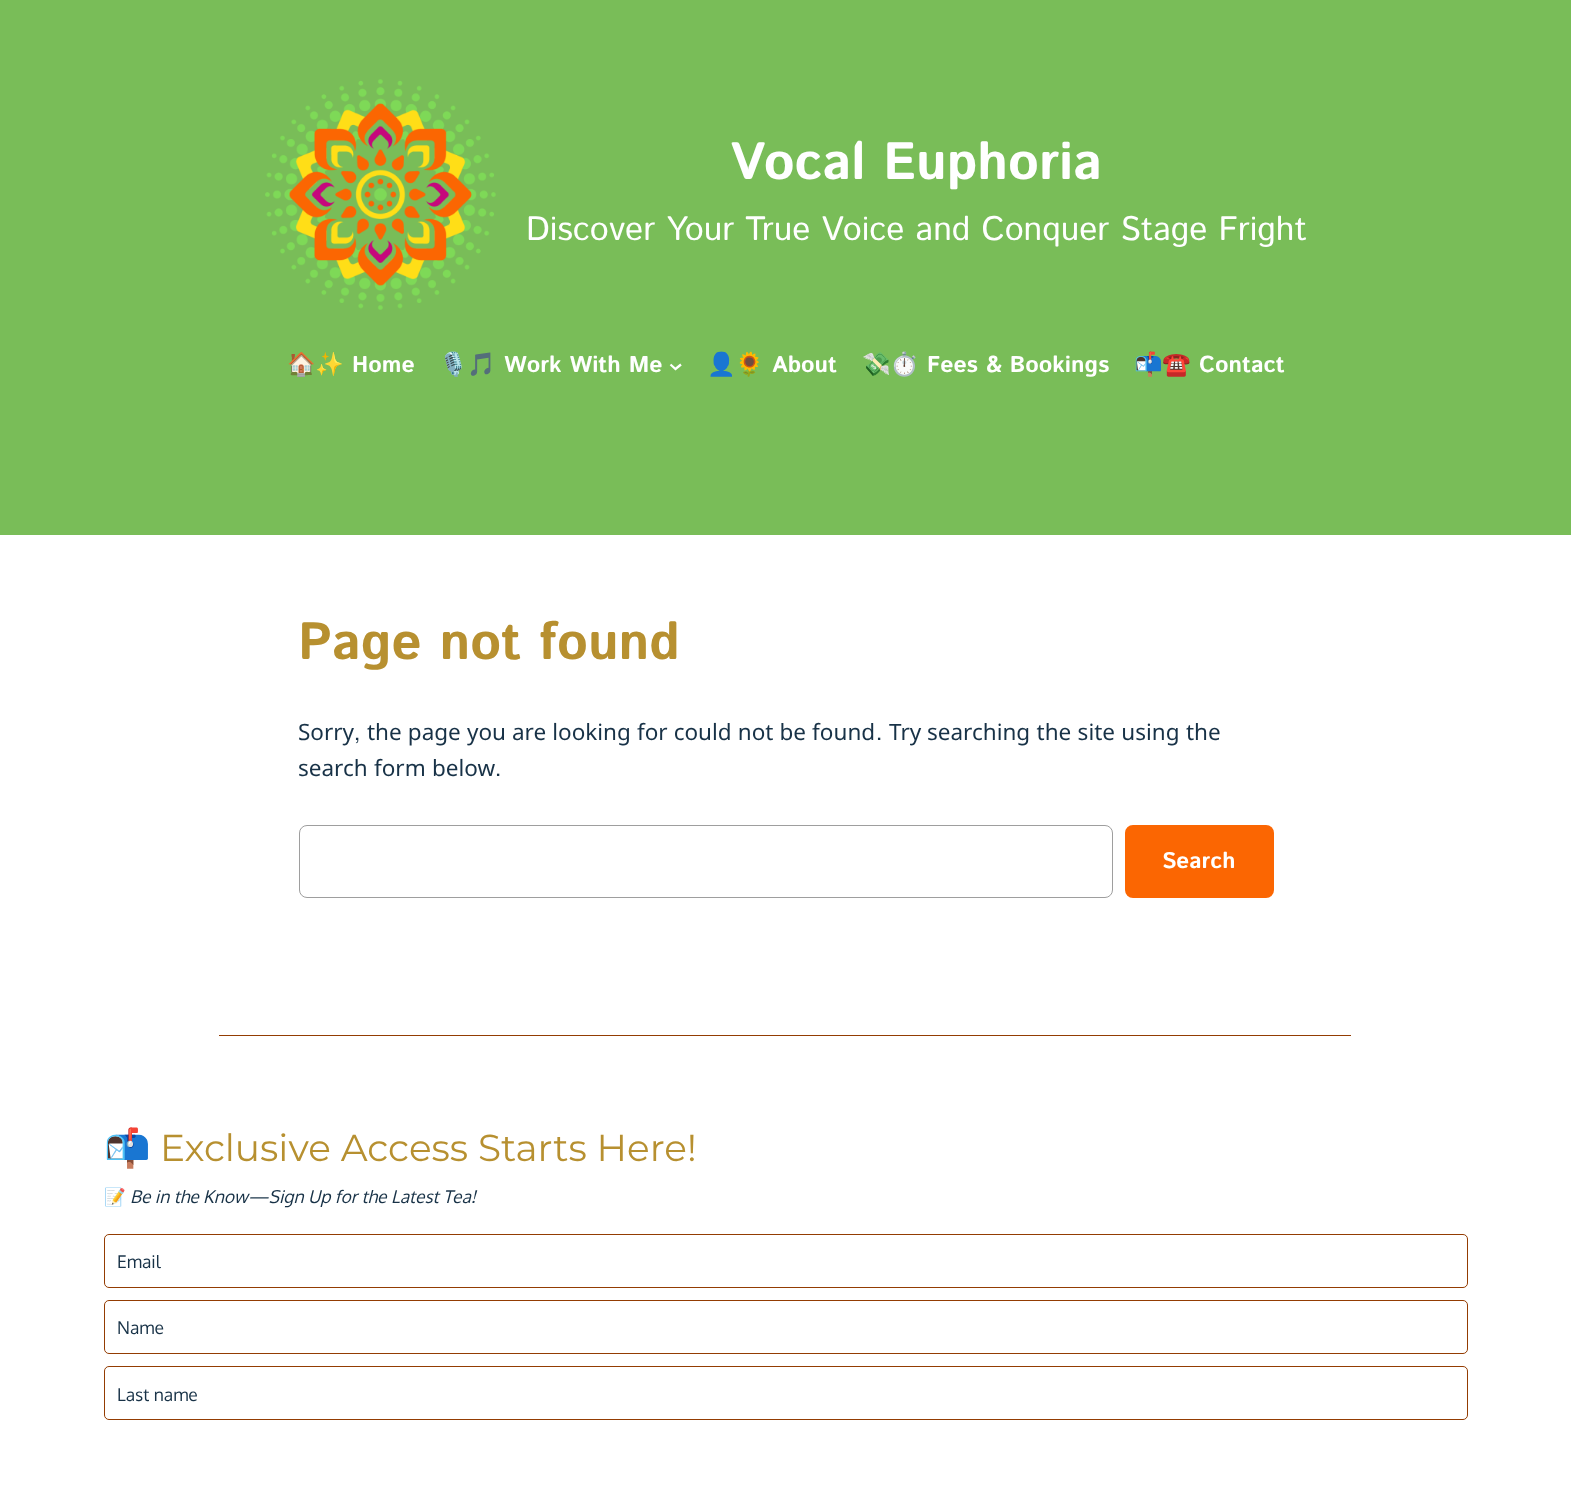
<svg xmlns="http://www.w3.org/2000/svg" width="1571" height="1505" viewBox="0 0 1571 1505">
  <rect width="100%" height="100%" fill="#ffffff"/>
  <rect x="0" y="0" width="1571" height="535" fill="#79bd58"/>
  <image x="265" y="79" width="231" height="231" href="img1.png"/>
  <text x="730" y="179" font-family="Istok Web" font-size="52.5" font-weight="bold" fill="#ffffff">Vocal Euphoria</text>
  <text x="526" y="240" font-family="Istok Web" font-size="33.8" fill="#ffffff">Discover Your True Voice and Conquer Stage Fright</text>
  <text x="287" y="372" font-family="Noto Color Emoji" font-size="23" font-weight="bold" fill="#ffffff">🏠✨</text>
  <text x="352" y="372" font-family="Istok Web" font-size="23" font-weight="bold" fill="#ffffff">Home</text>
  <text x="439" y="372" font-family="Noto Color Emoji" font-size="23" font-weight="bold" fill="#ffffff">🎙️🎵</text>
  <text x="504" y="372" font-family="Istok Web" font-size="23" font-weight="bold" fill="#ffffff">Work With Me</text>
  <path d="M670.5 364.5L675.5 369L681 364.5" fill="none" stroke="#ffffff" stroke-width="2.3"/>
  <text x="707" y="372" font-family="Noto Color Emoji" font-size="23" font-weight="bold" fill="#ffffff">👤🌻</text>
  <text x="772" y="372" font-family="Istok Web" font-size="23" font-weight="bold" fill="#ffffff">About</text>
  <text x="862" y="372" font-family="Noto Color Emoji" font-size="23" font-weight="bold" fill="#ffffff">💸⏱️</text>
  <text x="927" y="372" font-family="Istok Web" font-size="23" font-weight="bold" fill="#ffffff">Fees &amp; Bookings</text>
  <text x="1134" y="372" font-family="Noto Color Emoji" font-size="23" font-weight="bold" fill="#ffffff">📬☎️</text>
  <text x="1199" y="372" font-family="Istok Web" font-size="23" font-weight="bold" fill="#ffffff">Contact</text>
  <text x="298" y="659" font-family="Istok Web" font-size="52.5" font-weight="bold" fill="#b79030">Page not found</text>
  <text x="298" y="740" font-family="Noto Sans" font-size="22.5" fill="#183247">Sorry</text>
  <text x="354" y="740" font-family="Content" font-size="22.5" fill="#183247">,</text>
  <text x="367" y="740" word-spacing="0.25" font-family="Noto Sans" font-size="22.5" fill="#183247">the page you are looking for could not be found</text>
  <text x="876" y="740" font-family="Content" font-size="22.5" fill="#183247">.</text>
  <text x="889" y="740" font-family="Noto Sans" font-size="22.5" fill="#183247">Try</text>
  <text x="927" y="740" word-spacing="0.5" font-family="Noto Sans" font-size="22.5" fill="#183247">searching the site using the</text>
  <text x="298" y="776" word-spacing="0.5" font-family="Noto Sans" font-size="22.5" fill="#183247">search form below</text>
  <text x="495" y="776" font-family="Content" font-size="22.5" fill="#183247">.</text>
  <rect x="299.5" y="825.5" width="813" height="72" rx="7.5" fill="none" stroke="#9e9e9e"/>
  <rect x="1125" y="825" width="149" height="73" rx="8" fill="#fb6602"/>
  <text x="1162" y="868" font-family="Istok Web" font-size="22.5" font-weight="bold" fill="#ffffff">Search</text>
  <rect x="219" y="1035" width="1132" height="1" fill="#933c02"/>
  <text x="104" y="1161" font-family="Noto Color Emoji" font-size="37.5" fill="#b79030">📬</text>
  <text x="160" y="1161" font-family="Montserrat" font-size="37.5" fill="#b79030">Exclusive Access Starts Here!</text>
  <text x="104" y="1203" font-family="Noto Color Emoji" font-size="17.5" fill="#183247">📝</text>
  <text x="130" y="1203" font-family="Oxygen" font-size="17.5" font-style="italic" fill="#183247">Be in the Know—Sign Up for the Latest Tea!</text>
  <rect x="104.5" y="1234.5" width="1363" height="53" rx="4.5" fill="none" stroke="#933c02"/>
  <text x="117" y="1268" font-family="Oxygen" font-size="17.5" fill="#183247">Email</text>
  <rect x="104.5" y="1300.5" width="1363" height="53" rx="4.5" fill="none" stroke="#933c02"/>
  <text x="117" y="1334" font-family="Oxygen" font-size="17.5" fill="#183247">Name</text>
  <rect x="104.5" y="1366.5" width="1363" height="53" rx="4.5" fill="none" stroke="#933c02"/>
  <text x="117" y="1401" font-family="Oxygen" font-size="17.5" fill="#183247">Last name</text>
</svg>
